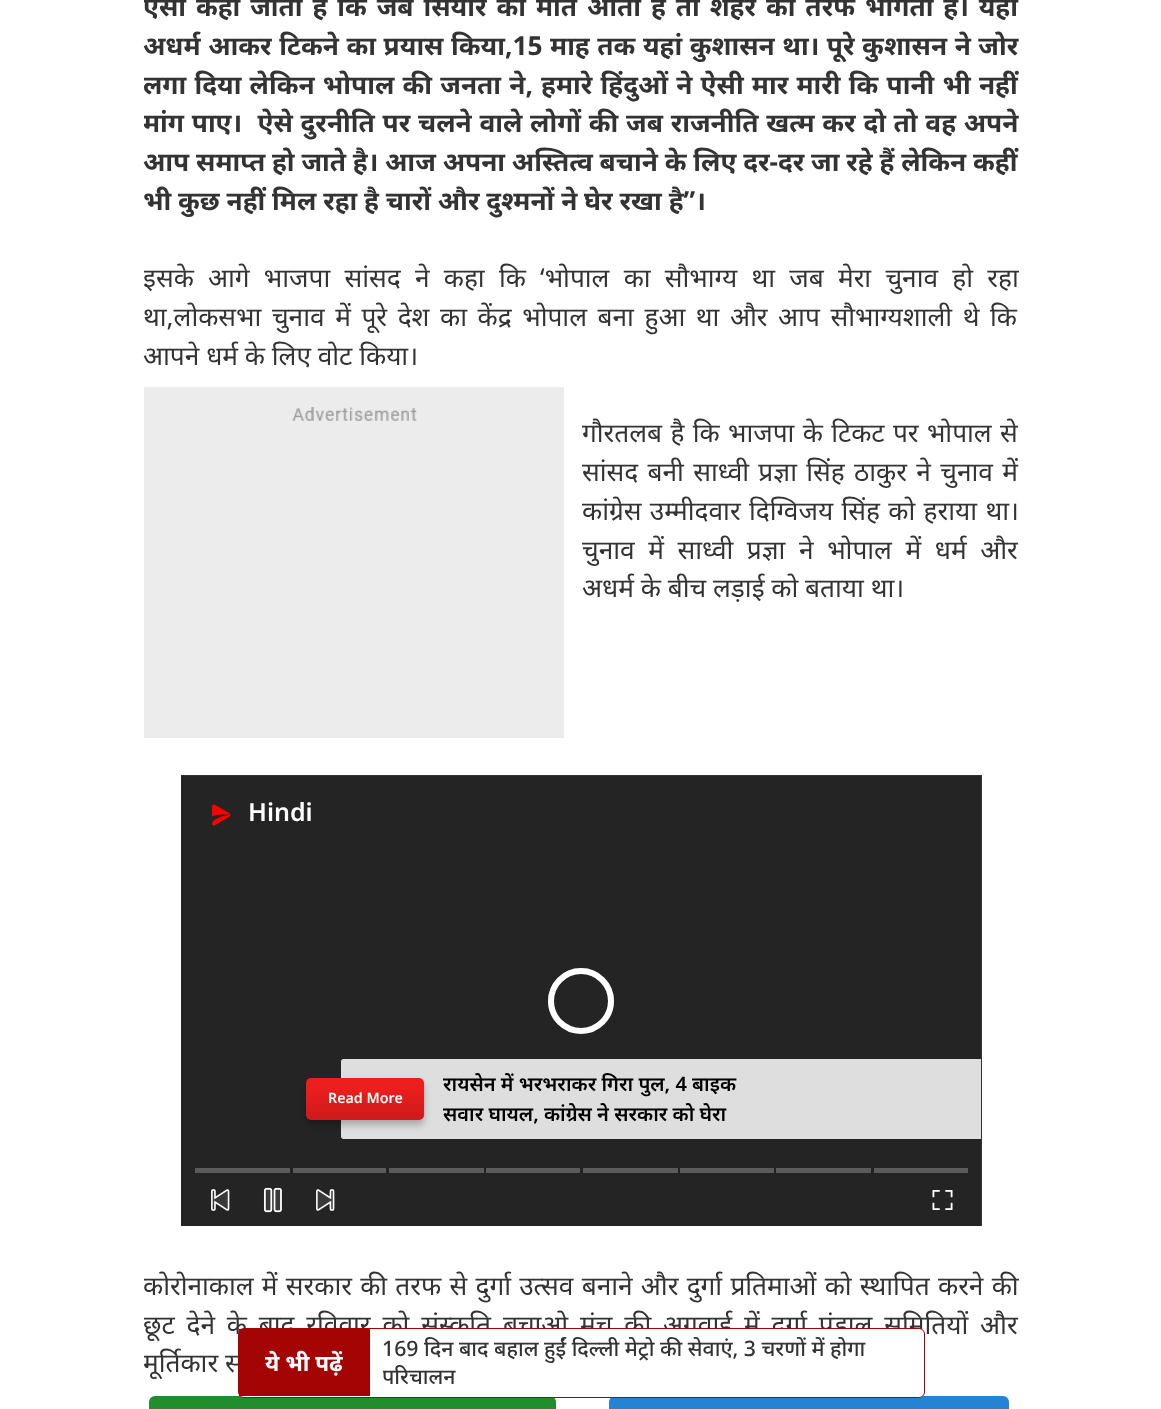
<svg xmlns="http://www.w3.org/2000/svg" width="1161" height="1409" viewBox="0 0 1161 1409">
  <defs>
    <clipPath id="clip1"><rect x="144" y="0" width="875" height="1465"/></clipPath>
    <filter id="blur1" x="-50%" y="-200%" width="200%" height="500%"><feGaussianBlur stdDeviation="3.5"/></filter>
    <linearGradient id="g1" gradientUnits="userSpaceOnUse" x1="365" y1="1077" x2="365" y2="1120"><stop offset="0.25" stop-color="#ed1e1e"/><stop offset="1" stop-color="#cd1a1a"/></linearGradient>
    <clipPath id="clip2"><rect x="383" y="1335" width="528" height="55"/></clipPath>
  </defs>
  <rect width="100%" height="100%" fill="#ffffff"/>
  <g clip-path="url(#clip1)">
    <text x="143" y="16" word-spacing="3.1" font-family="Noto Sans" font-size="26.25" font-weight="bold" fill="#333333">ऐसा कहा जाता है कि जब सियार की मौत आती है तो शहर की तरफ भागता है। यहां</text>
  </g>
  <text x="143" y="55" word-spacing="0.75" font-family="Noto Sans" font-size="26.25" font-weight="bold" fill="#333333">अधर्म आकर टिकने का प्रयास किया,15 माह तक यहां कुशासन था। पूरे कुशासन ने जोर</text>
  <g clip-path="url(#clip1)">
    <text x="143" y="94" word-spacing="1.4" font-family="Noto Sans" font-size="26.25" font-weight="bold" fill="#333333">लगा दिया लेकिन भोपाल की जनता ने, हमारे हिंदुओं ने ऐसी मार मारी कि पानी भी नहीं</text>
    <text x="143" y="132" word-spacing="0.9" font-family="Noto Sans" font-size="26.25" font-weight="bold" fill="#333333" xml:space="preserve">मांग पाए।  ऐसे दुरनीति पर चलने वाले लोगों की जब राजनीति खत्म कर दो तो वह अपने</text>
  </g>
  <text x="143" y="171" font-family="Noto Sans" font-size="26.25" font-weight="bold" fill="#333333">आप समाप्त हो जाते है। आज अपना अस्तित्व बचाने के लिए दर-दर जा रहे हैं लेकिन कहीं</text>
  <g clip-path="url(#clip1)">
    <text x="143" y="210" font-family="Noto Sans" font-size="26.25" font-weight="bold" fill="#333333">भी कुछ नहीं मिल रहा है चारों और दुश्मनों ने घेर रखा है”।</text>
    <text x="143" y="287" word-spacing="7.4" font-family="Noto Sans" font-size="26.25" fill="#333333">इसके आगे भाजपा सांसद ने कहा कि ‘भोपाल का सौभाग्य था जब मेरा चुनाव हो रहा</text>
    <text x="143" y="326" word-spacing="3.75" font-family="Noto Sans" font-size="26.25" fill="#333333">था,लोकसभा चुनाव में पूरे देश का केंद्र भोपाल बना हुआ था और आप सौभाग्यशाली थे कि</text>
  </g>
  <text x="143" y="365" font-family="Noto Sans" font-size="26.25" fill="#333333">आपने धर्म के लिए वोट किया।</text>
  <rect x="144" y="388" width="420" height="350" fill="#ececec"/>
  <image x="144" y="387" width="420" height="34" href="img1.png"/>
  <text x="582" y="442" word-spacing="1.5" font-family="Noto Sans" font-size="26.25" fill="#333333">गौरतलब है कि भाजपा के टिकट पर भोपाल से</text>
  <text x="582" y="481" word-spacing="2.5" font-family="Noto Sans" font-size="26.25" fill="#333333">सांसद बनी साध्वी प्रज्ञा सिंह ठाकुर ने चुनाव में</text>
  <text x="582" y="520" word-spacing="1.5" font-family="Noto Sans" font-size="26.25" fill="#333333">कांग्रेस उम्मीदवार दिग्विजय सिंह को हराया था।</text>
  <text x="582" y="559" word-spacing="6.75" font-family="Noto Sans" font-size="26.25" fill="#333333">चुनाव में साध्वी प्रज्ञा ने भोपाल में धर्म और</text>
  <text x="582" y="597" font-family="Noto Sans" font-size="26.25" fill="#333333">अधर्म के बीच लड़ाई को बताया था।</text>
  <rect x="181" y="775" width="801" height="451" fill="#333333"/>
  <rect x="181" y="776" width="800" height="450" fill="#242424"/>
  <image x="212" y="804" width="19" height="22" href="img2.png"/>
  <text x="248" y="821" font-family="Noto Sans" font-size="25" font-weight="600" fill="#ffffff">Hindi</text>
  <circle cx="581" cy="1001" r="30" fill="none" stroke="#505050" stroke-width="6"/>
  <circle cx="581" cy="1001" r="30" fill="none" stroke="#ffffff" stroke-width="6"/>
  <path d="M343.5 1059H981V1139H343.5C342 1139 341 1138 341 1136.5V1061.5C341 1060 342 1059 343.5 1059Z" fill="#dedede"/>
  <rect x="306" y="1083" width="118" height="42" rx="5" fill="#000000" fill-opacity="0.25" filter="url(#blur1)"/>
  <rect x="306" y="1078" width="118" height="42" rx="5" fill="url(#g1)"/>
  <text x="328" y="1103" font-family="Noto Sans" font-size="14.25" font-weight="600" fill="#ffffff">Read More</text>
  <text x="443" y="1091" font-family="Noto Sans" font-size="20" font-weight="600" fill="#000000">रायसेन में भरभराकर गिरा पुल, 4 बाइक</text>
  <text x="443" y="1121" font-family="Noto Sans" font-size="20" font-weight="600" fill="#000000">सवार घायल, कांग्रेस ने सरकार को घेरा</text>
  <rect x="195" y="1168" width="95" height="5" fill="#5b5b5b"/>
  <rect x="293" y="1168" width="93" height="5" fill="#5b5b5b"/>
  <rect x="389" y="1168" width="95" height="5" fill="#5b5b5b"/>
  <rect x="486" y="1168" width="94" height="5" fill="#5b5b5b"/>
  <rect x="583" y="1168" width="95" height="5" fill="#5b5b5b"/>
  <rect x="680" y="1168" width="94" height="5" fill="#5b5b5b"/>
  <rect x="776" y="1168" width="95" height="5" fill="#5b5b5b"/>
  <rect x="874" y="1168" width="94" height="5" fill="#5b5b5b"/>
  <image x="211" y="1189" width="19" height="22" href="img3.png"/>
  <image x="263" y="1187" width="19" height="26" href="img4.png"/>
  <image x="316" y="1189" width="19" height="22" href="img5.png"/>
  <image x="932" y="1190" width="21" height="20" href="img6.png"/>
  <g clip-path="url(#clip1)">
    <text x="143" y="1295" word-spacing="1.4" font-family="Noto Sans" font-size="26.25" fill="#333333">कोरोनाकाल में सरकार की तरफ से दुर्गा उत्सव बनाने और दुर्गा प्रतिमाओं को स्थापित करने की</text>
    <text x="143" y="1334" word-spacing="5" font-family="Noto Sans" font-size="26.25" fill="#333333">छूट देने के बाद रविवार को संस्कृति बचाओ मंच की अगुवाई में दुर्गा पंडाल समितियों और</text>
    <text x="143" y="1372" font-family="Noto Sans" font-size="26.25" fill="#333333">मूर्तिकार स</text>
  </g>
  <rect x="149" y="1396" width="407" height="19" rx="6" fill="#218d2d"/>
  <rect x="609" y="1396" width="400" height="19" rx="6" fill="#2484d3"/>
  <rect x="238.5" y="1328.5" width="686" height="69" rx="5.5" fill="#ffffff" stroke="#a50404"/>
  <rect x="239" y="1329" width="131" height="67" fill="#a50404"/>
  <text x="265" y="1371" font-family="Noto Sans" font-size="22.5" font-weight="bold" fill="#ffffff">ये भी पढ़ें</text>
  <text x="382" y="1356" font-family="Noto Sans" font-size="21.25" font-weight="500" fill="#333333">169 दिन बाद बहाल हुईं दिल्ली मेट्रो की सेवाएं, 3 चरणों में होगा</text>
  <g clip-path="url(#clip2)">
    <text x="382" y="1384" font-family="Noto Sans" font-size="21.25" font-weight="500" fill="#333333">परिचालन</text>
  </g>
</svg>
